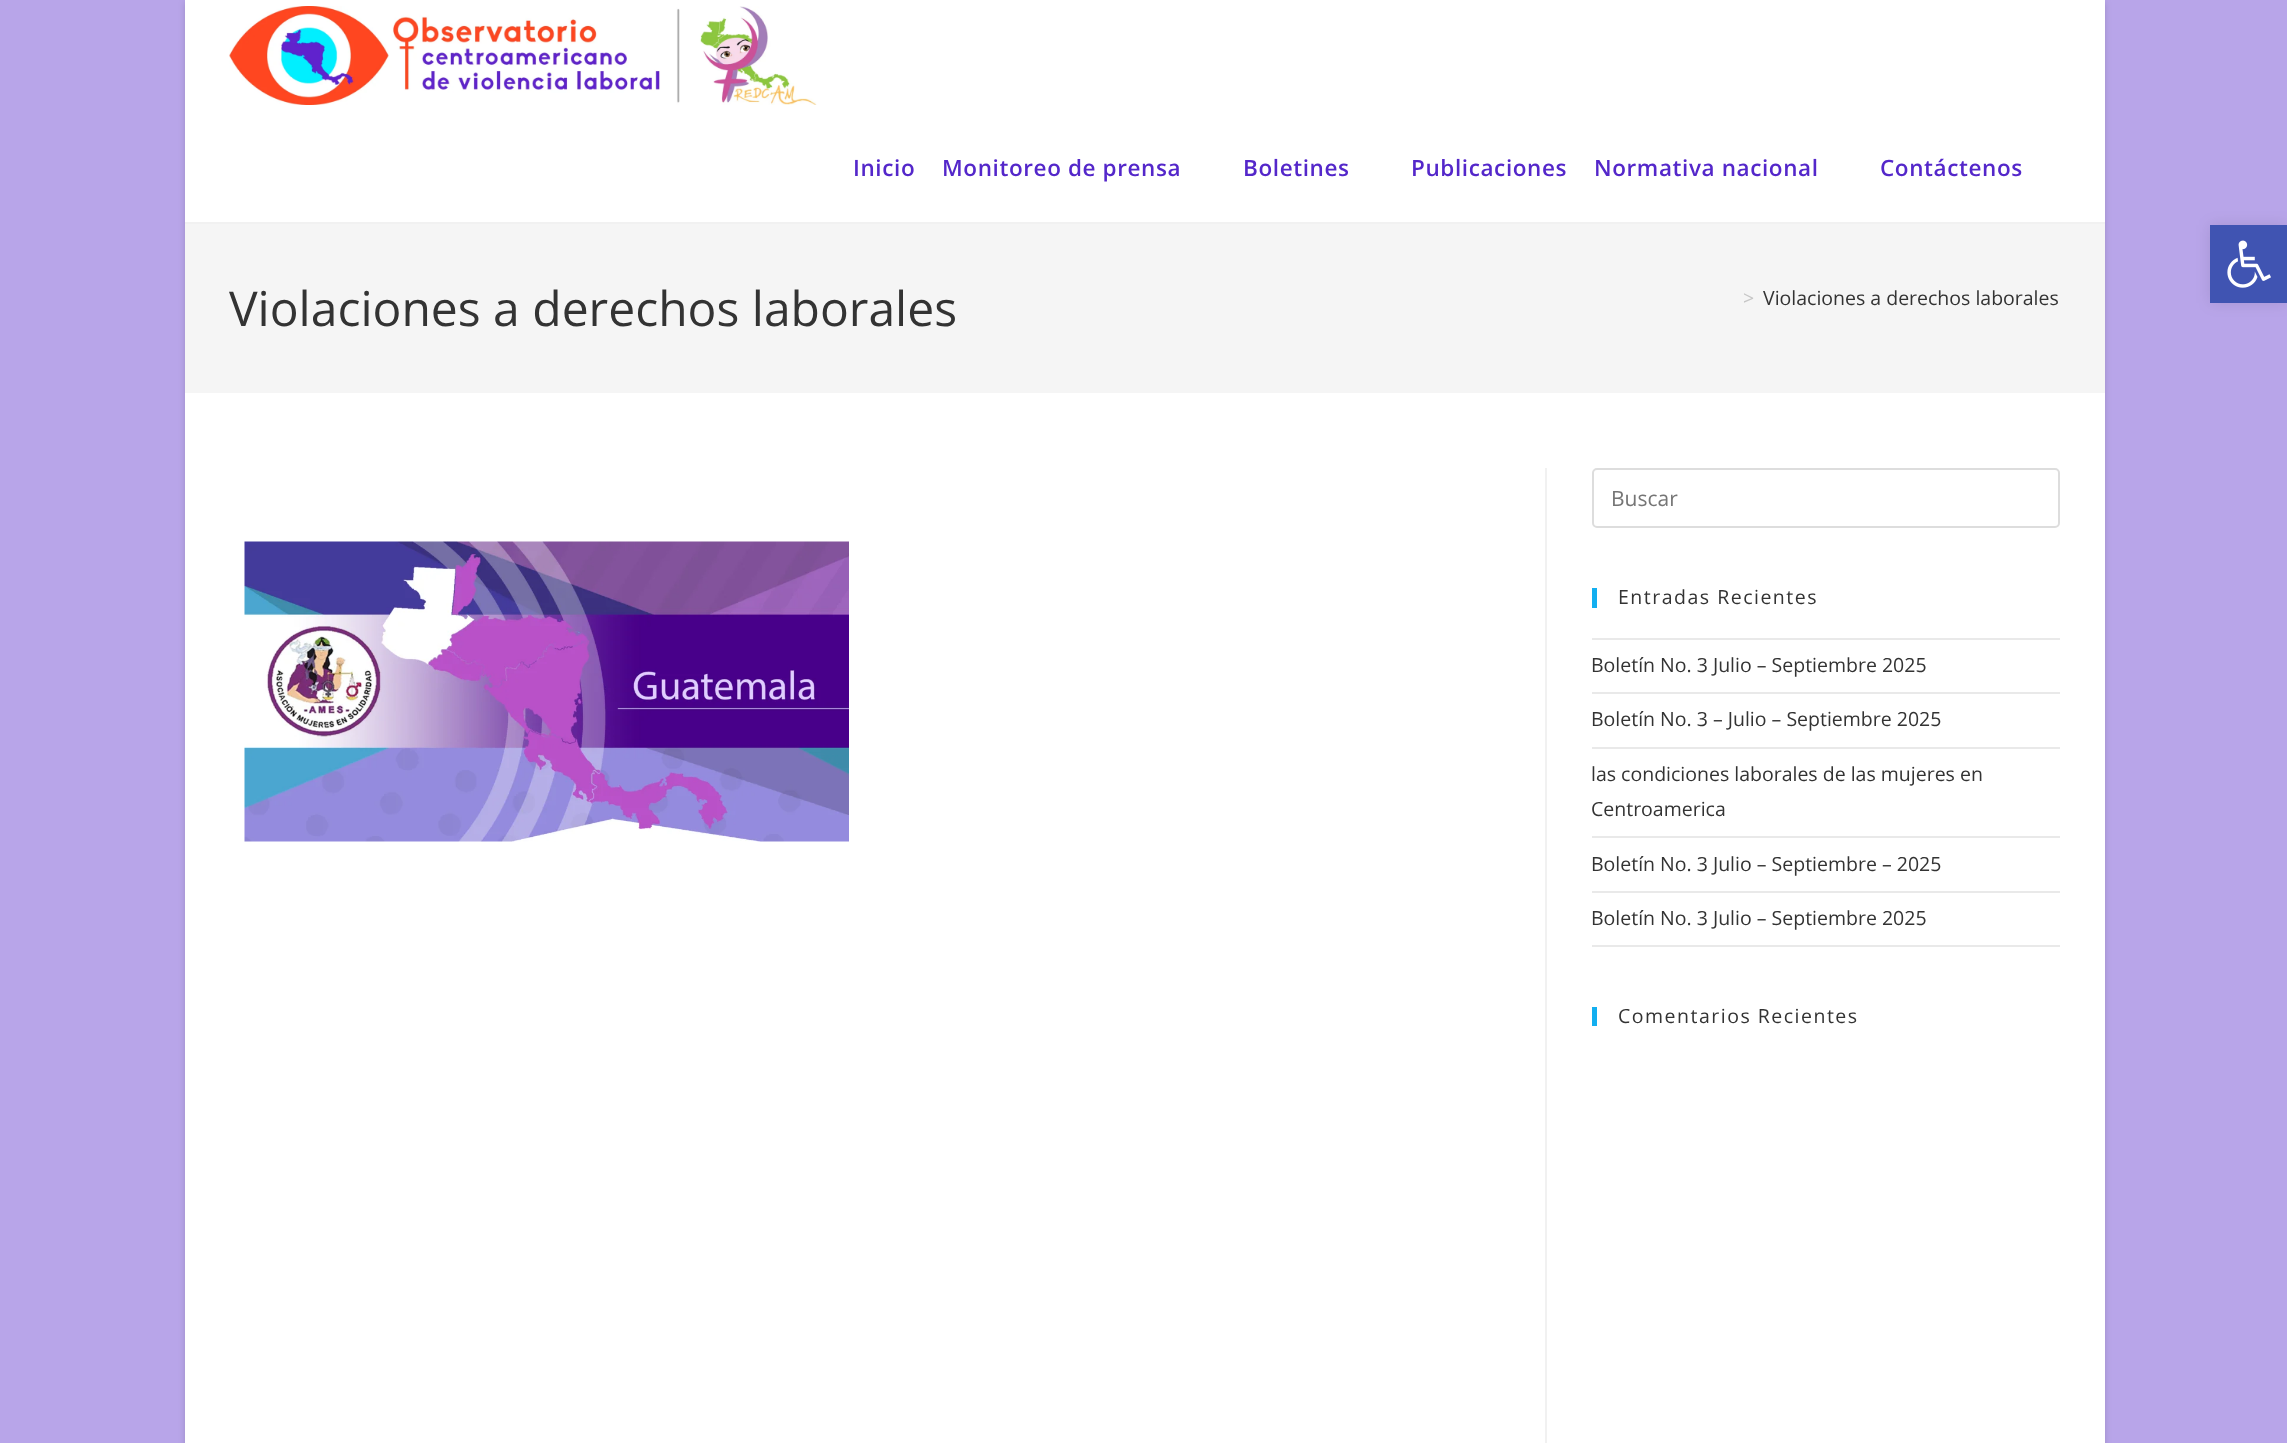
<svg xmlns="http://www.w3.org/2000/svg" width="2287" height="1443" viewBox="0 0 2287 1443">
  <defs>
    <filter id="blur1" x="-50%" y="-200%" width="200%" height="500%"><feGaussianBlur stdDeviation="3"/></filter>
    <filter id="blur2" x="-50%" y="-200%" width="200%" height="500%"><feGaussianBlur stdDeviation="7.5"/></filter>
  </defs>
  <rect width="100%" height="100%" fill="#b8a5e9"/>
  <rect x="185" y="2" width="1920" height="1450" fill="#000000" fill-opacity="0.15" filter="url(#blur1)"/>
  <rect x="185" y="0" width="1920" height="1443" fill="#ffffff"/>
  <rect x="185" y="222" width="1920" height="2" fill="#f1f1f1"/>
  <image x="229" y="6" width="588" height="99" href="img1.png"/>
  <text x="853" y="176" font-family="Open Sans" font-size="22.5" font-weight="600" letter-spacing="0.6" fill="#5427ca">Inicio</text>
  <text x="942" y="176" font-family="Open Sans" font-size="22.5" font-weight="600" letter-spacing="0.6" fill="#5427ca">Monitoreo de prensa</text>
  <text x="1243" y="176" font-family="Open Sans" font-size="22.5" font-weight="600" letter-spacing="0.6" fill="#5427ca">Boletines</text>
  <text x="1411" y="176" font-family="Open Sans" font-size="22.5" font-weight="600" letter-spacing="0.6" fill="#5427ca">Publicaciones</text>
  <text x="1594" y="176" font-family="Open Sans" font-size="22.5" font-weight="600" letter-spacing="0.6" fill="#5427ca">Normativa nacional</text>
  <text x="1880" y="176" font-family="Open Sans" font-size="22.5" font-weight="600" letter-spacing="0.6" fill="#5427ca">Contáctenos</text>
  <rect x="185" y="224" width="1920" height="169" fill="#f5f5f5"/>
  <text x="229" y="326" font-family="Open Sans" font-size="48" fill="#333333">Violaciones a derechos laborales</text>
  <text x="1743" y="305" font-family="Open Sans" font-size="19.5" fill="#c6c6c6">&gt;</text>
  <text x="1763" y="305" font-family="Open Sans" font-size="19.5" fill="#333333">Violaciones a derechos laborales</text>
  <rect x="1545" y="468" width="2" height="975" fill="#f1f1f1"/>
  <image x="244" y="541" width="605" height="301" href="img2.png"/>
  <rect x="1593" y="469" width="466" height="58" rx="4" fill="none" stroke="#dddddd" stroke-width="2"/>
  <text x="1611" y="506" font-family="Open Sans" font-size="21" fill="#757575">Buscar</text>
  <rect x="1592" y="588" width="5" height="20" fill="#13aff0"/>
  <text x="1618" y="604" font-family="Open Sans" font-size="19.5" letter-spacing="1.5" fill="#333333">Entradas Recientes</text>
  <rect x="1592" y="638" width="468" height="2" fill="#e9e9e9"/>
  <rect x="1592" y="692" width="468" height="2" fill="#e9e9e9"/>
  <text x="1591" y="672" font-family="Open Sans" font-size="19.5" fill="#333333">Boletín No. 3 Julio – Septiembre 2025</text>
  <rect x="1592" y="747" width="468" height="2" fill="#e9e9e9"/>
  <text x="1591" y="726" font-family="Open Sans" font-size="19.5" fill="#333333">Boletín No. 3 – Julio – Septiembre 2025</text>
  <rect x="1592" y="836" width="468" height="2" fill="#e9e9e9"/>
  <text x="1591" y="781" font-family="Open Sans" font-size="19.5" fill="#333333">las condiciones laborales de las mujeres en</text>
  <text x="1591" y="816" font-family="Open Sans" font-size="19.5" fill="#333333">Centroamerica</text>
  <rect x="1592" y="891" width="468" height="2" fill="#e9e9e9"/>
  <text x="1591" y="871" font-family="Open Sans" font-size="19.5" fill="#333333">Boletín No. 3 Julio – Septiembre – 2025</text>
  <rect x="1592" y="945" width="468" height="2" fill="#e9e9e9"/>
  <text x="1591" y="925" font-family="Open Sans" font-size="19.5" fill="#333333">Boletín No. 3 Julio – Septiembre 2025</text>
  <rect x="1592" y="1007" width="5" height="19" fill="#13aff0"/>
  <text x="1618" y="1023" font-family="Open Sans" font-size="19.5" letter-spacing="1.5" fill="#333333">Comentarios Recientes</text>
  <rect x="2210" y="225" width="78" height="78" fill="#000000" fill-opacity="0.1" filter="url(#blur2)"/>
  <rect x="2210" y="225" width="77" height="78" fill="#4054b2"/>
  <image x="2227" y="240" width="44" height="48" href="img3.png"/>
</svg>
